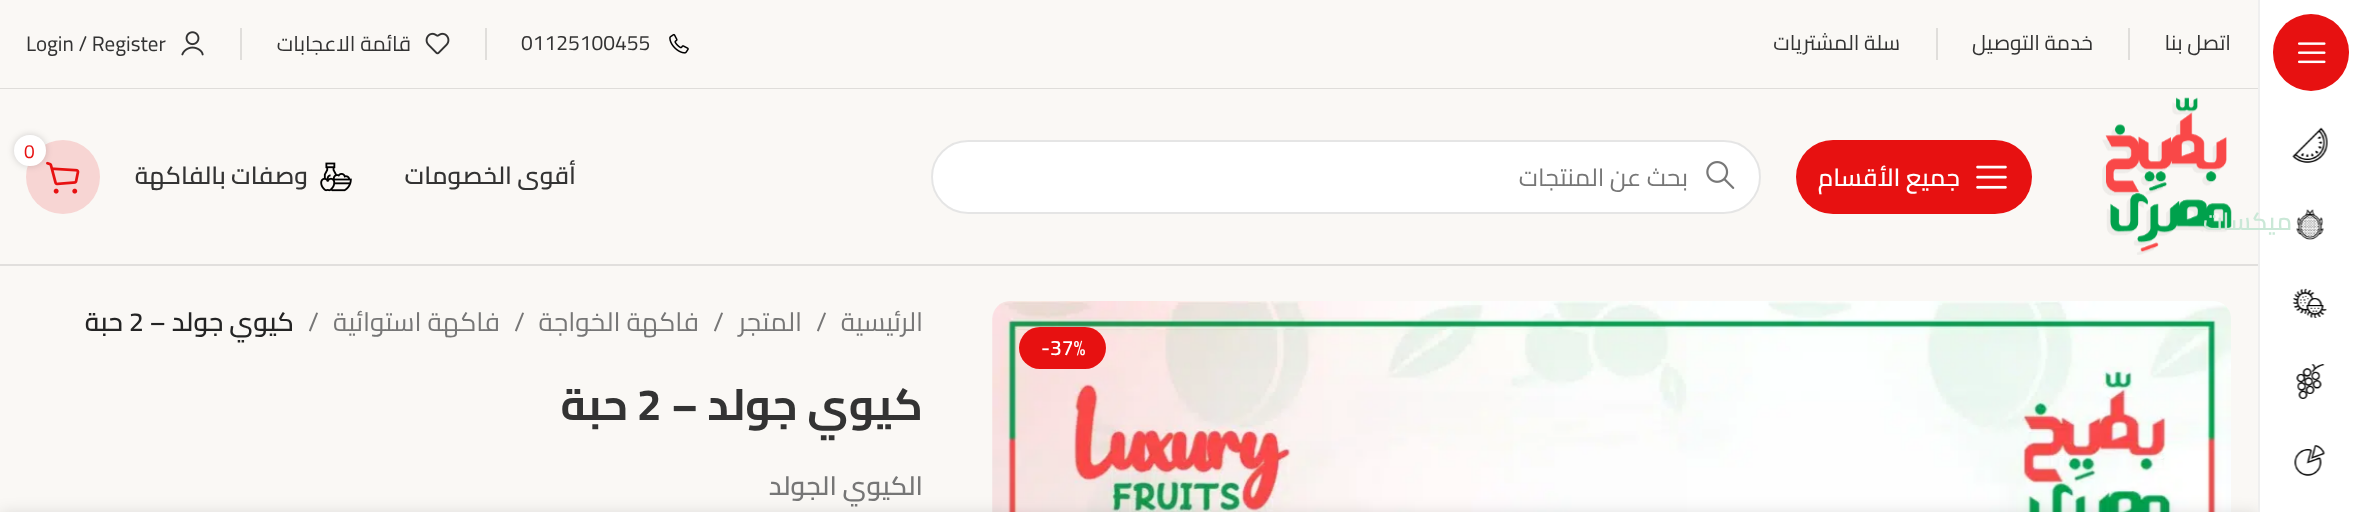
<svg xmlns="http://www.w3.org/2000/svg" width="2361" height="512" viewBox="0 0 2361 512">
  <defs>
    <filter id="blur1" x="-50%" y="-200%" width="200%" height="500%"><feGaussianBlur stdDeviation="8"/></filter>
    <filter id="blur2" x="-50%" y="-200%" width="200%" height="500%"><feGaussianBlur stdDeviation="3.5"/></filter>
  </defs>
  <rect width="100%" height="100%" fill="#faf8f5"/>
  <image x="992" y="301" width="1239" height="211" href="img15.png"/>
  <rect x="0" y="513" width="2258" height="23" fill="#000000" fill-opacity="0.12" filter="url(#blur1)"/>
  <rect x="2260" y="0" width="101" height="512" fill="#ffffff"/>
  <rect x="2258" y="0" width="2" height="512" fill="#efefef"/>
  <rect x="2273" y="14" width="76" height="77" rx="38" fill="#e71111"/>
  <image x="2298" y="42" width="28" height="22" href="img1.png"/>
  <image x="2292" y="127" width="36" height="36" href="img2.png"/>
  <image x="2296" y="209" width="28" height="31" href="img3.png"/>
  <image x="2102" y="97" width="130" height="158" href="img10.png"/>
  <text x="2292" y="230" font-family="Cairo" font-size="24.5" font-weight="600" direction="rtl" fill="#cae8d7">ميكسات</text>
  <image x="2292" y="288" width="35" height="30" href="img4.png"/>
  <image x="2296" y="364" width="29" height="35" href="img5.png"/>
  <image x="2294" y="445" width="32" height="31" href="img6.png"/>
  <rect x="0" y="88" width="2258" height="1" fill="#dfddda"/>
  <text x="2231" y="50" font-family="Cairo" font-size="21" direction="rtl" fill="#333333">اتصل بنا</text>
  <rect x="2128" y="28" width="2" height="32" fill="#e0dedb"/>
  <text x="2093" y="50" font-family="Cairo" font-size="21" direction="rtl" fill="#333333">خدمة التوصيل</text>
  <rect x="1936" y="28" width="2" height="32" fill="#e0dedb"/>
  <text x="1900" y="50" font-family="Cairo" font-size="21" direction="rtl" fill="#333333">سلة المشتريات</text>
  <image x="669" y="33" width="20" height="21" href="img7.png"/>
  <text x="521" y="50" font-family="Cairo" font-size="21" fill="#333333">01125100455</text>
  <rect x="485" y="28" width="2" height="32" fill="#e0dedb"/>
  <image x="425" y="32" width="25" height="23" href="img8.png"/>
  <text x="411" y="51" font-family="Cairo" font-size="21" direction="rtl" fill="#333333">قائمة الاعجابات</text>
  <rect x="240" y="28" width="2" height="32" fill="#e0dedb"/>
  <image x="181" y="31" width="23" height="25" href="img9.png"/>
  <text x="26" y="51" font-family="Cairo" font-size="21" fill="#333333">Login / Register</text>
  <rect x="0" y="264" width="2258" height="2" fill="#e1dfdd"/>
  <circle cx="63" cy="177" r="37" fill="#f7d5d3"/>
  <image x="46" y="161" width="34" height="33" href="img11.png"/>
  <rect x="14" y="135" width="32" height="31" rx="15.5" fill="#000000" fill-opacity="0.17" filter="url(#blur2)"/>
  <rect x="14" y="135" width="32" height="31" rx="15.5" fill="#ffffff"/>
  <text x="24" y="158" font-family="Cairo" font-size="19" fill="#e71111">0</text>
  <rect x="1796" y="140" width="236" height="74" rx="37" fill="#e71111"/>
  <image x="1976" y="165" width="31" height="24" href="img12.png"/>
  <text x="1960" y="186" font-family="Cairo" font-size="24.5" font-weight="600" direction="rtl" fill="#ffffff">جميع الأقسام</text>
  <rect x="931" y="140" width="830" height="74" rx="37" fill="#ffffff"/>
  <rect x="932" y="141" width="828" height="72" rx="36" fill="none" stroke="#000000" stroke-opacity="0.1" stroke-width="2"/>
  <image x="1706" y="161" width="29" height="28" href="img13.png"/>
  <text x="1688" y="186" font-family="Cairo" font-size="24.5" direction="rtl" fill="#767676">بحث عن المنتجات</text>
  <text x="576" y="184" font-family="Cairo" font-size="24.5" font-weight="600" direction="rtl" fill="#333333">أقوى الخصومات</text>
  <image x="320" y="162" width="32" height="30" href="img14.png"/>
  <text x="308" y="184" font-family="Cairo" font-size="24.5" font-weight="600" direction="rtl" fill="#333333">وصفات بالفاكهة</text>
  <rect x="1019" y="327" width="87" height="42" rx="21" fill="#e71111"/>
  <text x="1041" y="355" font-family="Cairo" font-size="21" font-weight="600" fill="#ffffff">-37%</text>
  <text x="923" y="331" font-family="Cairo" font-size="26.25" direction="rtl" fill="#767676">الرئيسية</text>
  <text x="816" y="331" font-family="Cairo" font-size="26.25" fill="#767676">/</text>
  <text x="802" y="331" font-family="Cairo" font-size="26.25" direction="rtl" fill="#767676">المتجر</text>
  <text x="713" y="331" font-family="Cairo" font-size="26.25" fill="#767676">/</text>
  <text x="699" y="331" font-family="Cairo" font-size="26.25" direction="rtl" fill="#767676">فاكهة الخواجة</text>
  <text x="514" y="331" font-family="Cairo" font-size="26.25" fill="#767676">/</text>
  <text x="500" y="331" font-family="Cairo" font-size="26.25" direction="rtl" fill="#767676">فاكهة استوائية</text>
  <text x="308" y="331" font-family="Cairo" font-size="26.25" fill="#767676">/</text>
  <text x="294" y="331" font-family="Cairo" font-size="26.25" font-weight="600" direction="rtl" fill="#242424">كيوي جولد –</text>
  <text x="129" y="331" font-family="Cairo" font-size="26.25" font-weight="600" fill="#242424">2</text>
  <text x="123" y="331" font-family="Cairo" font-size="26.25" font-weight="600" direction="rtl" fill="#242424">حبة</text>
  <text x="923" y="420" font-family="Cairo" font-size="43.75" font-weight="bold" direction="rtl" fill="#333333">كيوي جولد –</text>
  <text x="637" y="420" font-family="Cairo" font-size="43.75" font-weight="bold" fill="#333333">2</text>
  <text x="628" y="420" font-family="Cairo" font-size="43.75" font-weight="bold" direction="rtl" fill="#333333">حبة</text>
  <text x="923" y="495" font-family="Cairo" font-size="26.25" font-weight="600" direction="rtl" fill="#767676">الكيوي الجولد</text>
</svg>
